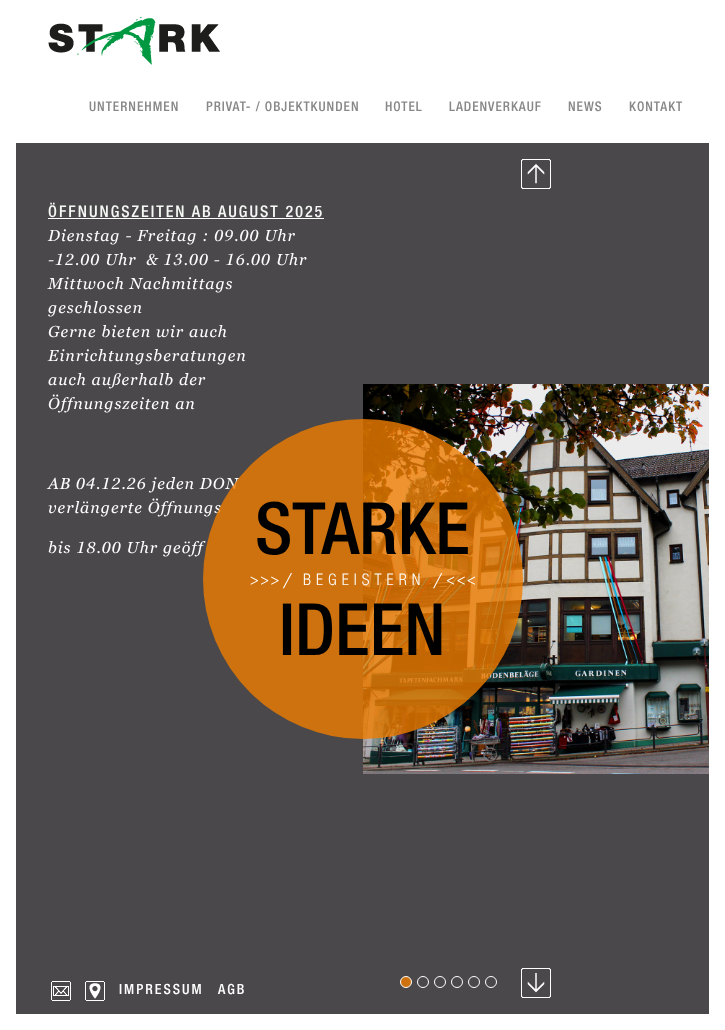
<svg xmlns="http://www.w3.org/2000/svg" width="725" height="1030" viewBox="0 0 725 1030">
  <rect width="100%" height="100%" fill="#ffffff"/>
  <image x="48" y="16" width="172" height="49" href="img1.png"/>
  <text x="89" y="111" font-family="'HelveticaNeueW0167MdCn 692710'" font-size="13.25" letter-spacing="1" fill="#888888">UNTERNEHMEN</text>
  <text x="206" y="111" font-family="'HelveticaNeueW0167MdCn 692710'" font-size="13.25" letter-spacing="1" fill="#888888">PRIVAT- / OBJEKTKUNDEN</text>
  <text x="385" y="111" font-family="'HelveticaNeueW0167MdCn 692710'" font-size="13.25" letter-spacing="1" fill="#888888">HOTEL</text>
  <text x="449" y="111" font-family="'HelveticaNeueW0167MdCn 692710'" font-size="13.25" letter-spacing="1" fill="#888888">LADENVERKAUF</text>
  <text x="568" y="111" font-family="'HelveticaNeueW0167MdCn 692710'" font-size="13.25" letter-spacing="1" fill="#888888">NEWS</text>
  <text x="629" y="111" font-family="'HelveticaNeueW0167MdCn 692710'" font-size="13.25" letter-spacing="1" fill="#888888">KONTAKT</text>
  <rect x="16" y="143" width="693" height="871" fill="#4a484a"/>
  <text x="48" y="217" font-family="'HelveticaNeueW0167MdCn 692710'" font-size="16" letter-spacing="2" fill="#f5f8f5">ÖFFNUNGSZEITEN AB AUGUST 2025</text>
  <rect x="48" y="218" width="276" height="1" fill="#ffffff"/>
  <text x="48" y="241" font-family="Georgia" font-size="16" letter-spacing="1" fill="#ffffff">Dienstag - Freitag : 09.00 Uhr</text>
  <text x="48" y="265" font-family="Georgia" font-size="16" letter-spacing="1" fill="#ffffff" xml:space="preserve">-12.00 Uhr  &amp; 13.00 - 16.00 Uhr</text>
  <text x="48" y="289" font-family="Georgia" font-size="16" letter-spacing="1" fill="#ffffff">Mittwoch Nachmittags</text>
  <text x="48" y="313" font-family="Georgia" font-size="16" letter-spacing="1" fill="#ffffff">geschlossen</text>
  <text x="48" y="337" font-family="Georgia" font-size="16" letter-spacing="1" fill="#ffffff">Gerne bieten wir auch</text>
  <text x="48" y="361" font-family="Georgia" font-size="16" letter-spacing="1" fill="#ffffff">Einrichtungsberatungen</text>
  <text x="48" y="385" font-family="Georgia" font-size="16" letter-spacing="1" fill="#ffffff">auch außerhalb der</text>
  <text x="48" y="409" font-family="Georgia" font-size="16" letter-spacing="1" fill="#ffffff">Öffnungszeiten an</text>
  <text x="48" y="489" font-family="Georgia" font-size="16" letter-spacing="1" fill="#ffffff">AB 04.12.26 jeden DON</text>
  <text x="48" y="513" font-family="Georgia" font-size="16" letter-spacing="1" fill="#ffffff">verlängerte Öffnungs</text>
  <text x="48" y="553" font-family="Georgia" font-size="16" letter-spacing="1" fill="#ffffff">bis 18.00 Uhr geöff</text>
  <image x="521" y="159" width="30" height="30" href="img2.png"/>
  <image x="363" y="384" width="346" height="390" href="img3.png"/>
  <circle cx="406" cy="982" r="5.5" fill="#ce720f" stroke="#ffffff"/>
  <circle cx="423" cy="982" r="5.5" fill="none" stroke="#ffffff"/>
  <circle cx="440" cy="982" r="5.5" fill="none" stroke="#ffffff"/>
  <circle cx="457" cy="982" r="5.5" fill="none" stroke="#ffffff"/>
  <circle cx="474" cy="982" r="5.5" fill="none" stroke="#ffffff"/>
  <circle cx="491" cy="982" r="5.5" fill="none" stroke="#ffffff"/>
  <image x="521" y="968" width="30" height="30" href="img4.png"/>
  <circle cx="363" cy="579" r="160" fill="#ef7d00" fill-opacity="0.8"/>
  <text x="255" y="554" font-family="'HelveticaNeueW0167MdCn 692710'" font-size="72" fill="#000000">STARKE</text>
  <text x="249" y="585" font-family="Georgia" font-size="16" fill="#ffffff">&gt;&gt;&gt; /</text>
  <text x="303" y="585" font-family="'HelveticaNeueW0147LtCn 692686'" font-size="16" letter-spacing="5" fill="#ffffff">BEGEISTERN</text>
  <text x="434" y="585" font-family="Georgia" font-size="16" fill="#ffffff">/ &lt;&lt;&lt;</text>
  <text x="279" y="655" font-family="'HelveticaNeueW0167MdCn 692710'" font-size="72" fill="#000000">IDEEN</text>
  <image x="51" y="981" width="20" height="20" href="img5.png"/>
  <image x="85" y="981" width="20" height="20" href="img6.png"/>
  <text x="119" y="994" font-family="'HelveticaNeueW0167MdCn 692710'" font-size="14" letter-spacing="2" fill="#ffffff">IMPRESSUM</text>
  <text x="218" y="994" font-family="'HelveticaNeueW0167MdCn 692710'" font-size="14" letter-spacing="2" fill="#ffffff">AGB</text>
</svg>
